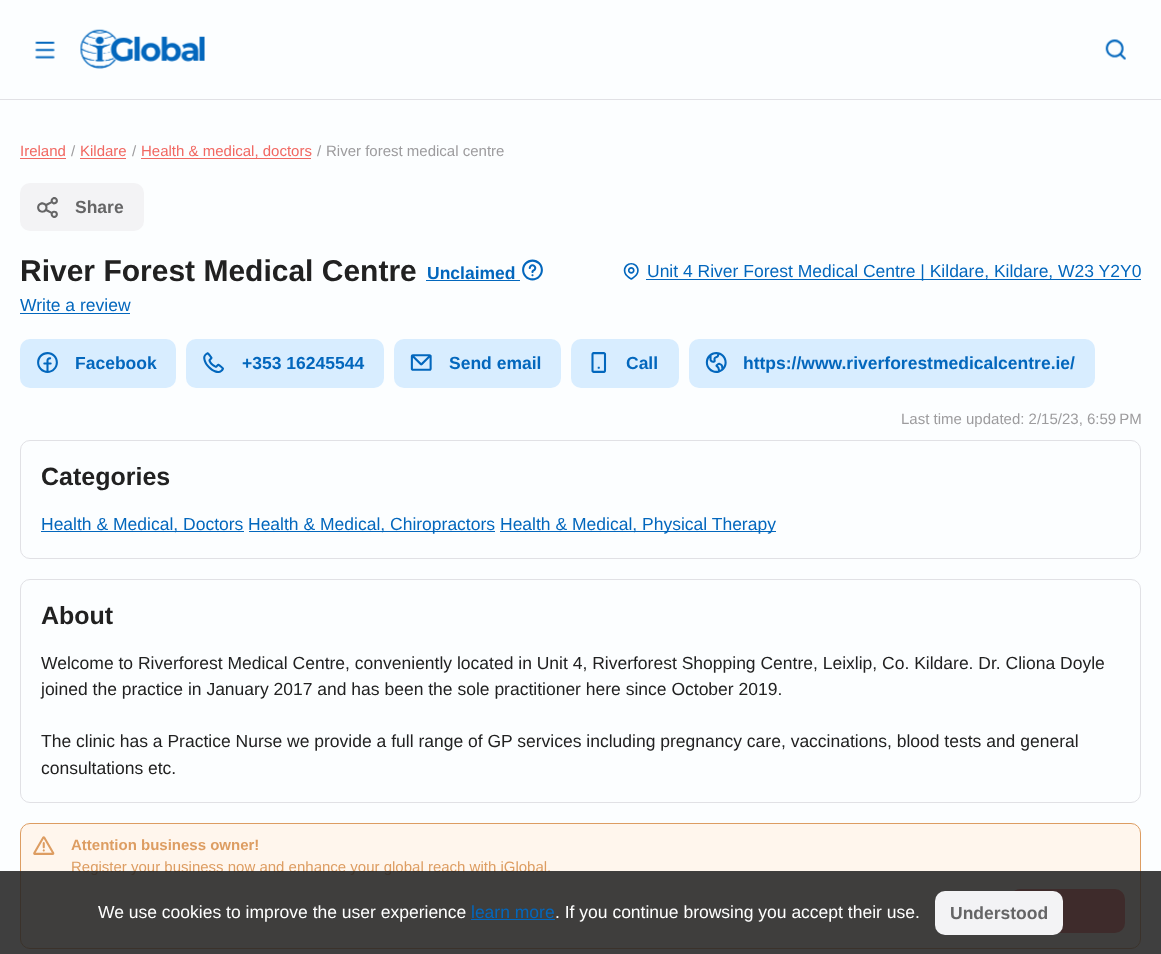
<svg xmlns="http://www.w3.org/2000/svg" width="1161" height="954" viewBox="0 0 1161 954">
  <rect width="100%" height="100%" fill="#fcfeff"/>
  <rect x="0" y="99" width="1161" height="1" fill="#e1e1e5"/>
  <image x="35" y="41" width="20" height="18" href="img1.png"/>
  <image x="80" y="29" width="125" height="40" href="img2.png"/>
  <image x="1105" y="39" width="21" height="21" href="img3.png"/>
  <text x="20" y="156" font-family="Liberation Sans" font-size="15" fill="#f16862">Ireland</text>
  <rect x="20" y="158" width="46" height="1" fill="#f16862"/>
  <text x="71" y="156" font-family="Liberation Sans" font-size="15" fill="#9d9c9e">/</text>
  <text x="80" y="156" font-family="Liberation Sans" font-size="15" fill="#f16862">Kildare</text>
  <rect x="80" y="158" width="46" height="1" fill="#f16862"/>
  <text x="132" y="156" font-family="Liberation Sans" font-size="15" fill="#9d9c9e">/</text>
  <text x="141" y="156" font-family="Liberation Sans" font-size="15" fill="#f16862">Health &amp; medical, doctors</text>
  <rect x="141" y="158" width="170" height="1" fill="#f16862"/>
  <text x="317" y="156" font-family="Liberation Sans" font-size="15" fill="#9d9c9e">/</text>
  <text x="326" y="156" font-family="Liberation Sans" font-size="15" fill="#9d9c9e">River forest medical centre</text>
  <rect x="20" y="183" width="124" height="48" rx="10" fill="#f3f3f5"/>
  <image x="37" y="197" width="21" height="21" href="img4.png"/>
  <text x="75" y="213" font-family="Liberation Sans" font-size="17.5" font-weight="bold" fill="#656566">Share</text>
  <text x="20" y="281" font-family="Liberation Sans" font-size="30" font-weight="bold" fill="#212121">River Forest Medical Centre</text>
  <text x="427" y="279" font-family="Liberation Sans" font-size="17.5" font-weight="bold" fill="#0367bd">Unclaimed</text>
  <rect x="426" y="280" width="94" height="1" fill="#0367bd"/>
  <image x="522" y="259" width="21" height="22" href="img5.png"/>
  <image x="623" y="263" width="16" height="17" href="img6.png"/>
  <rect x="646" y="279" width="495" height="1" fill="#0367bd"/>
  <text x="647" y="277" font-family="Liberation Sans" font-size="17.5" fill="#0367bd">Unit 4 River Forest Medical Centre | Kildare, Kildare, W23 Y2Y0</text>
  <text x="20" y="311" font-family="Liberation Sans" font-size="17.5" fill="#0367bd">Write a review</text>
  <rect x="20" y="313" width="110" height="1" fill="#0367bd"/>
  <rect x="20" y="339" width="156" height="49" rx="10" fill="#d8edff"/>
  <image x="37" y="352" width="21" height="21" href="img7.png"/>
  <text x="75" y="369" font-family="Liberation Sans" font-size="17.5" font-weight="bold" fill="#0367bd">Facebook</text>
  <rect x="186" y="339" width="198" height="49" rx="10" fill="#d8edff"/>
  <image x="203" y="352" width="21" height="21" href="img8.png"/>
  <text x="242" y="369" font-family="Liberation Sans" font-size="17.5" font-weight="bold" fill="#0367bd">+353 16245544</text>
  <rect x="394" y="339" width="167" height="49" rx="10" fill="#d8edff"/>
  <image x="410" y="354" width="22" height="17" href="img9.png"/>
  <text x="449" y="369" font-family="Liberation Sans" font-size="17.5" font-weight="bold" fill="#0367bd">Send email</text>
  <rect x="571" y="339" width="108" height="49" rx="10" fill="#d8edff"/>
  <image x="591" y="352" width="16" height="21" href="img10.png"/>
  <text x="626" y="369" font-family="Liberation Sans" font-size="17.5" font-weight="bold" fill="#0367bd">Call</text>
  <rect x="689" y="339" width="406" height="49" rx="10" fill="#d8edff"/>
  <image x="705" y="352" width="22" height="21" href="img11.png"/>
  <text x="743" y="369" font-family="Liberation Sans" font-size="17.5" font-weight="bold" fill="#0367bd">https://www.riverforestmedicalcentre.ie/</text>
  <text x="901" y="424" font-family="Liberation Sans" font-size="15" fill="#9d9c9e">Last time updated: 2/15/23, 6:59 PM</text>
  <rect x="20.5" y="440.5" width="1120" height="118" rx="9.5" fill="none" stroke="#e1e1e5"/>
  <text x="41" y="485" font-family="Liberation Sans" font-size="25" font-weight="bold" fill="#212121">Categories</text>
  <rect x="41" y="531" width="203" height="1" fill="#0367bd"/>
  <text x="41" y="530" font-family="Liberation Sans" font-size="17.5" fill="#0367bd">Health &amp; Medical, Doctors</text>
  <rect x="249" y="531" width="246" height="1" fill="#0367bd"/>
  <text x="248" y="530" font-family="Liberation Sans" font-size="17.5" fill="#0367bd">Health &amp; Medical, Chiropractors</text>
  <rect x="500" y="531" width="276" height="1" fill="#0367bd"/>
  <text x="500" y="530" font-family="Liberation Sans" font-size="17.5" fill="#0367bd">Health &amp; Medical, Physical Therapy</text>
  <rect x="20.5" y="579.5" width="1120" height="223" rx="9.5" fill="none" stroke="#e1e1e5"/>
  <text x="41" y="624" font-family="Liberation Sans" font-size="25" font-weight="bold" fill="#212121">About</text>
  <text x="41" y="669" font-family="Liberation Sans" font-size="17.5" fill="#212121">Welcome to Riverforest Medical Centre, conveniently located in Unit 4, Riverforest Shopping Centre, Leixlip, Co. Kildare. Dr. Cliona Doyle</text>
  <text x="41" y="695" font-family="Liberation Sans" font-size="17.5" fill="#212121">joined the practice in January 2017 and has been the sole practitioner here since October 2019.</text>
  <text x="41" y="747" font-family="Liberation Sans" font-size="17.5" fill="#212121">The clinic has a Practice Nurse we provide a full range of GP services including pregnancy care, vaccinations, blood tests and general</text>
  <text x="41" y="774" font-family="Liberation Sans" font-size="17.5" fill="#212121">consultations etc.</text>
  <rect x="20.5" y="823.5" width="1120" height="125" rx="9.5" fill="#fff6ed" stroke="#dd9d62"/>
  <image x="33" y="836" width="22" height="19" href="img12.png"/>
  <text x="71" y="850" font-family="Liberation Sans" font-size="15" font-weight="bold" fill="#dd9d62">Attention business owner!</text>
  <text x="71" y="872" font-family="Liberation Sans" font-size="15" fill="#dd9d62">Register your business now and enhance your global reach with iGlobal.</text>
  <rect x="1010" y="889" width="115" height="44" rx="10" fill="#f16862"/>
  <rect x="0" y="871" width="1161" height="83" fill="#222222" fill-opacity="0.87"/>
  <text x="98" y="918" font-family="Liberation Sans" font-size="17.5" fill="#ffffff">We use cookies to improve the user experience</text>
  <text x="471" y="918" font-family="Liberation Sans" font-size="17.5" fill="#0367bd">learn more</text>
  <rect x="471" y="919" width="84" height="1" fill="#0367bd"/>
  <text x="555" y="918" font-family="Liberation Sans" font-size="17.5" fill="#ffffff">. If you continue browsing you accept their use.</text>
  <rect x="935" y="891" width="128" height="44" rx="10" fill="#f3f3f5"/>
  <text x="950" y="919" font-family="Liberation Sans" font-size="17.5" font-weight="bold" fill="#656566">Understood</text>
</svg>
